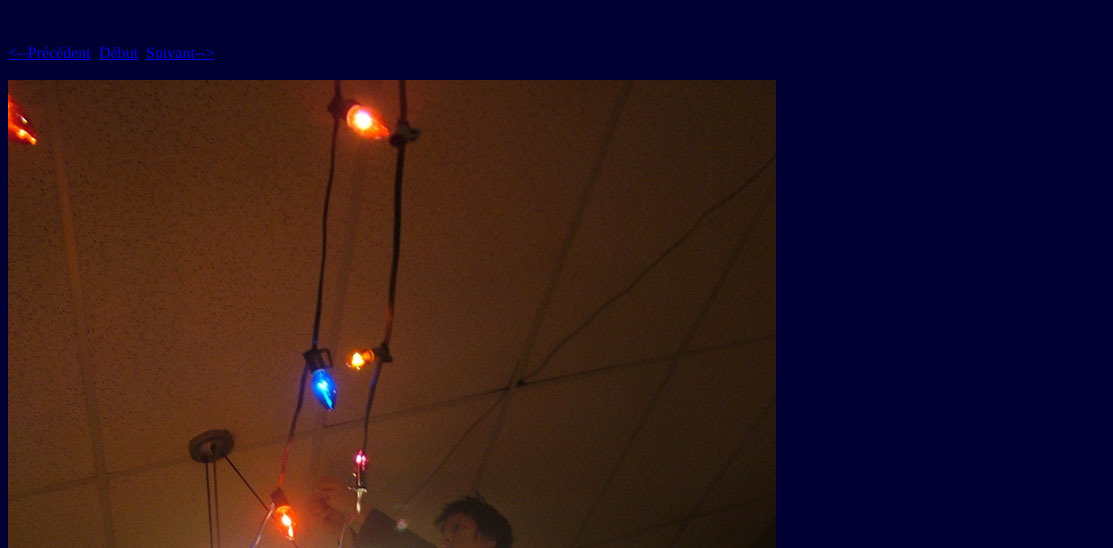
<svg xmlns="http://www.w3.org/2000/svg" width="1113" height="548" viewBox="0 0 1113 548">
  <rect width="100%" height="100%" fill="#000033"/>
  <text x="8" y="58" font-family="Liberation Serif" font-size="16" fill="#0000ee">&lt;--Précédent</text>
  <rect x="8" y="59" width="83" height="1" fill="#0000ee"/>
  <text x="99" y="58" font-family="Liberation Serif" font-size="16" fill="#0000ee">Début</text>
  <rect x="99" y="59" width="39" height="1" fill="#0000ee"/>
  <text x="146" y="58" font-family="Liberation Serif" font-size="16" fill="#0000ee">Suivant--&gt;</text>
  <rect x="146" y="59" width="68" height="1" fill="#0000ee"/>
  <image x="8" y="80" width="768" height="468" href="img1.png"/>
</svg>
